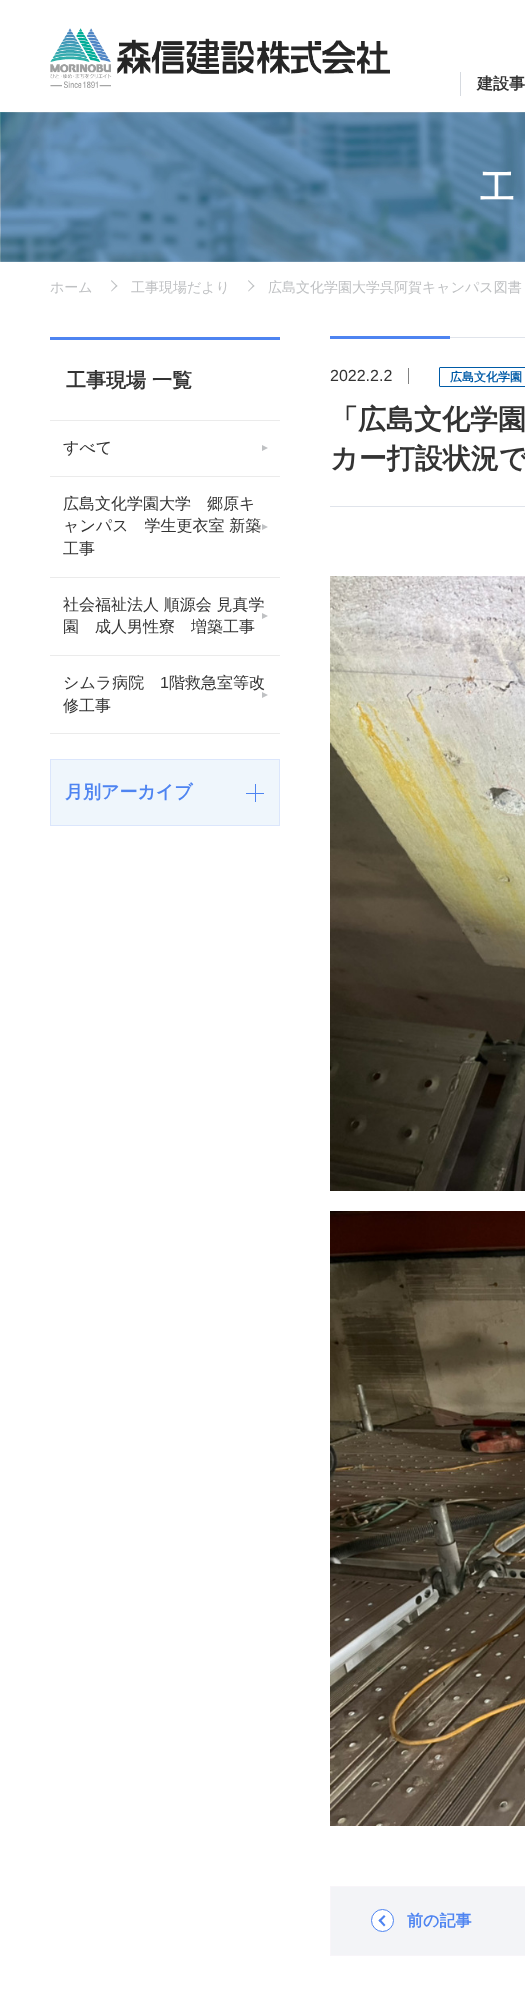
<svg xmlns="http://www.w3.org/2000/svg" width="525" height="1989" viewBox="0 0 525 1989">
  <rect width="100%" height="100%" fill="#ffffff"/>
  <image x="50" y="28" width="340" height="60" href="img1.png"/>
  <rect x="460" y="72" width="1" height="24" fill="#d6dae0"/>
  <text x="477" y="89" font-family="WenQuanYi Zen Hei" font-size="16" font-weight="bold" fill="#333333">建設事</text>
  <image x="0" y="112" width="525" height="150" href="img2.png"/>
  <text x="480" y="199" font-family="WenQuanYi Zen Hei" font-size="34" font-weight="bold" fill="#ffffff">工</text>
  <text x="50" y="292" font-family="WenQuanYi Zen Hei" font-size="14" font-weight="500" fill="#bfc1c3">ホーム</text>
  <path d="M111.5 280L117.5 286L116.5 286.5L111 281Z" fill="#bfc1c3"/>
  <path d="M116.5 285L117.5 286L111.5 291.5L111 291Z" fill="#bfc1c3"/>
  <text x="131" y="292" font-family="WenQuanYi Zen Hei" font-size="14" font-weight="500" fill="#bfc1c3">工事現場だより</text>
  <path d="M248.5 280L254.5 286L253.5 286.5L248 281Z" fill="#bfc1c3"/>
  <path d="M253.5 285L254.5 286L248.5 291.5L248 291Z" fill="#bfc1c3"/>
  <text x="268" y="292" font-family="WenQuanYi Zen Hei" font-size="14" font-weight="500" fill="#bfc1c3">広島文化学園大学呉阿賀キャンパス図書</text>
  <rect x="50" y="337" width="230" height="3" fill="#4e84f1"/>
  <rect x="50" y="420" width="230" height="1" fill="#ebebeb"/>
  <text x="66" y="387" font-family="WenQuanYi Zen Hei" font-size="20" font-weight="bold" fill="#333333">工事現場 一覧</text>
  <rect x="50" y="476" width="230" height="1" fill="#ebebeb"/>
  <text x="63" y="453" font-family="WenQuanYi Zen Hei" font-size="16" font-weight="500" fill="#333333">すべて</text>
  <path d="M262 451V445L268 448Z" fill="#bfc1c3"/>
  <rect x="50" y="577" width="230" height="1" fill="#ebebeb"/>
  <text x="63" y="509" font-family="WenQuanYi Zen Hei" font-size="16" font-weight="500" fill="#333333">広島文化学園大学　郷原キ</text>
  <text x="63" y="531" font-family="WenQuanYi Zen Hei" font-size="16" font-weight="500" fill="#333333">ャンパス　学生更衣室 新築</text>
  <path d="M262 530V524L268 527Z" fill="#bfc1c3"/>
  <text x="63" y="554" font-family="WenQuanYi Zen Hei" font-size="16" font-weight="500" fill="#333333">工事</text>
  <rect x="50" y="655" width="230" height="1" fill="#ebebeb"/>
  <text x="63" y="610" font-family="WenQuanYi Zen Hei" font-size="16" font-weight="500" fill="#333333">社会福祉法人 順源会 見真学</text>
  <path d="M262 619V613L268 616Z" fill="#bfc1c3"/>
  <text x="63" y="632" font-family="WenQuanYi Zen Hei" font-size="16" font-weight="500" fill="#333333">園　成人男性寮　増築工事</text>
  <rect x="50" y="733" width="230" height="1" fill="#ebebeb"/>
  <text x="63" y="688" font-family="WenQuanYi Zen Hei" font-size="16" font-weight="500" fill="#333333">シムラ病院</text>
  <text x="160" y="688" font-family="Liberation Sans" font-size="16" fill="#333333">1</text>
  <text x="169" y="688" font-family="WenQuanYi Zen Hei" font-size="16" font-weight="500" fill="#333333">階救急室等改</text>
  <path d="M262 698V692L268 695Z" fill="#bfc1c3"/>
  <text x="63" y="711" font-family="WenQuanYi Zen Hei" font-size="16" font-weight="500" fill="#333333">修工事</text>
  <rect x="50.5" y="759.5" width="229" height="66" fill="#eff6fc" stroke="#dbe6fc"/>
  <text x="65" y="798" font-family="WenQuanYi Zen Hei" font-size="18" font-weight="bold" fill="#4e84f1">月別アーカイブ</text>
  <rect x="246" y="793" width="18" height="1" fill="#4e84f1"/>
  <rect x="255" y="784" width="1" height="18" fill="#4e84f1"/>
  <rect x="450" y="337" width="75" height="1" fill="#e0e4eb"/>
  <rect x="330" y="506" width="195" height="1" fill="#e0e4eb"/>
  <rect x="330" y="336" width="120" height="3" fill="#4e84f1"/>
  <rect x="408" y="368" width="1" height="16" fill="#828282"/>
  <text x="330" y="381" font-family="Liberation Sans" font-size="16" fill="#333333">2022.2.2</text>
  <rect x="439.5" y="367.5" width="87" height="19" rx="0.5" fill="none" stroke="#005ba7"/>
  <text x="450" y="381" font-family="WenQuanYi Zen Hei" font-size="12" font-weight="bold" fill="#005ba7">広島文化学園</text>
  <text x="330" y="429" font-family="WenQuanYi Zen Hei" font-size="28" font-weight="bold" fill="#333333">「広島文化学園</text>
  <text x="330" y="468" font-family="WenQuanYi Zen Hei" font-size="28" font-weight="bold" fill="#333333">カー打設状況で</text>
  <image x="330" y="576" width="195" height="615" href="img3.png"/>
  <image x="330" y="1211" width="195" height="615" href="img4.png"/>
  <rect x="330.5" y="1886.5" width="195" height="69" fill="#f3f4f7" stroke="#f8f5f9"/>
  <circle cx="382.5" cy="1920.5" r="11" fill="#ffffff" stroke="#4e84f1"/>
  <text x="407" y="1926" font-family="WenQuanYi Zen Hei" font-size="16" font-weight="bold" fill="#4e84f1">前の記事</text>
  <path d="M384 1926.5L378.5 1920.5L380 1919L385.5 1925Z" fill="#4e84f1"/>
  <path d="M380 1922L378.5 1920.5L384 1915L385.5 1916.5Z" fill="#4e84f1"/>
</svg>
